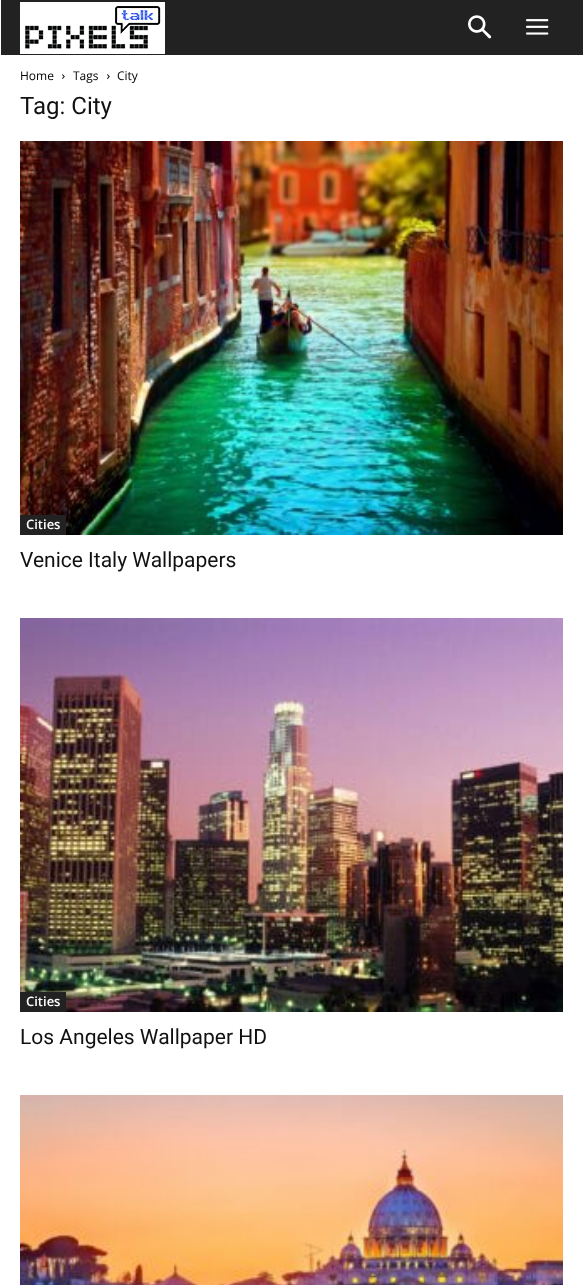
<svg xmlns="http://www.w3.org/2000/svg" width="583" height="1285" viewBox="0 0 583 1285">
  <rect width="100%" height="100%" fill="#ffffff"/>
  <rect x="1" y="0" width="582" height="55" fill="#222222"/>
  <image x="20" y="2" width="145" height="52" href="img1.png"/>
  <image x="468" y="15" width="24" height="24" href="img2.png"/>
  <image x="526" y="19" width="23" height="16" href="img3.png"/>
  <text x="20" y="80" font-family="Open Sans" font-size="12" fill="#000000">Home</text>
  <image x="62" y="74" width="3" height="5" href="img4.png"/>
  <text x="73" y="80" font-family="Open Sans" font-size="12" fill="#000000">Tags</text>
  <image x="107" y="74" width="3" height="5" href="img4.png"/>
  <text x="117" y="80" font-family="Open Sans" font-size="12" fill="#000000">City</text>
  <text x="20" y="114" font-family="Roboto" font-size="24" fill="#111111">Tag: City</text>
  <image x="20" y="141" width="543" height="394" href="img5.png"/>
  <rect x="20" y="515" width="46" height="20" fill="#222222"/>
  <text x="26" y="529" font-family="Open Sans" font-size="13" font-weight="600" fill="#ffffff">Cities</text>
  <text x="20" y="567" font-family="Roboto" font-size="21" fill="#111111">Venice Italy Wallpapers</text>
  <image x="20" y="618" width="543" height="394" href="img6.png"/>
  <rect x="20" y="992" width="46" height="20" fill="#222222"/>
  <text x="26" y="1006" font-family="Open Sans" font-size="13" font-weight="600" fill="#ffffff">Cities</text>
  <text x="20" y="1044" font-family="Roboto" font-size="21" fill="#111111">Los Angeles Wallpaper HD</text>
  <image x="20" y="1095" width="543" height="190" href="img7.png"/>
</svg>
